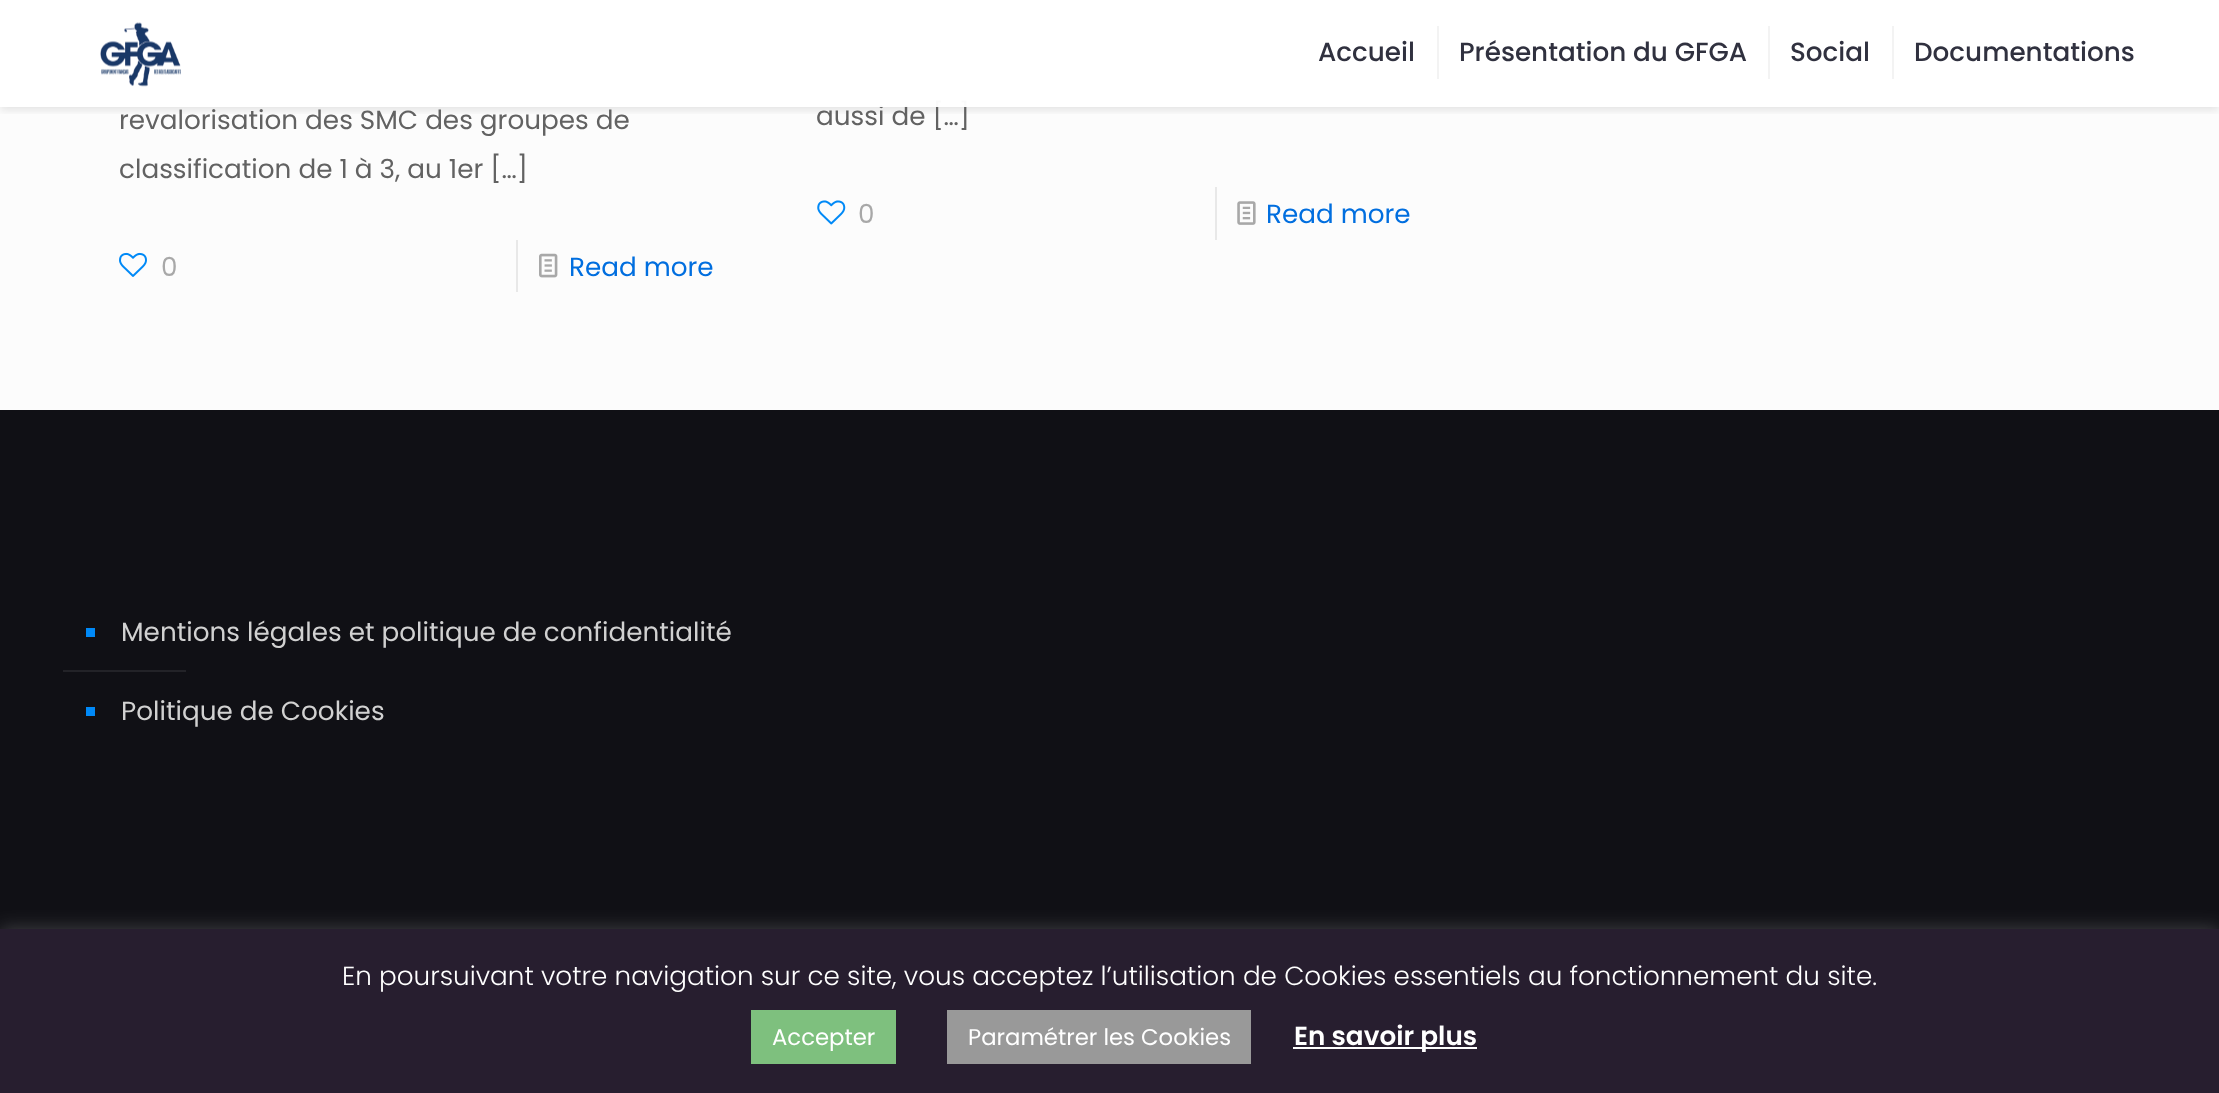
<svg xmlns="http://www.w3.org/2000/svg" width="2219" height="1093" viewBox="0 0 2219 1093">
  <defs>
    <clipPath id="clip1"><rect x="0" y="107" width="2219" height="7"/></clipPath>
    <filter id="blur1" x="-50%" y="-200%" width="200%" height="500%"><feGaussianBlur stdDeviation="4.5"/></filter>
    <filter id="blur2" x="-50%" y="-200%" width="200%" height="500%"><feGaussianBlur stdDeviation="9"/></filter>
  </defs>
  <rect width="100%" height="100%" fill="#fcfcfc"/>
  <g clip-path="url(#clip1)">
    <rect x="0" y="4" width="2219" height="106" fill="#000000" fill-opacity="0.1" filter="url(#blur1)"/>
  </g>
  <text x="816" y="125" font-family="Poppins" font-size="26.25" fill="#626262">aussi de […]</text>
  <rect x="0" y="0" width="2219" height="107" fill="#ffffff" fill-opacity="0.97"/>
  <image x="100" y="22" width="81" height="65" href="img1.png"/>
  <rect x="1437" y="26" width="2" height="53" fill="#f3f3f3"/>
  <text x="1318" y="61" font-family="Poppins" font-size="26.25" font-weight="500" fill="#30313f">Accueil</text>
  <rect x="1768" y="26" width="2" height="53" fill="#f3f3f3"/>
  <text x="1459" y="61" font-family="Poppins" font-size="26.25" font-weight="500" fill="#30313f">Présentation du GFGA</text>
  <rect x="1892" y="26" width="2" height="53" fill="#f3f3f3"/>
  <text x="1790" y="61" font-family="Poppins" font-size="26.25" font-weight="500" fill="#30313f">Social</text>
  <text x="1914" y="61" font-family="Poppins" font-size="26.25" font-weight="500" fill="#30313f">Documentations</text>
  <text x="119" y="129" font-family="Poppins" font-size="26.25" fill="#626262">revalorisation des SMC des groupes de</text>
  <text x="119" y="178" font-family="Poppins" font-size="26.25" fill="#626262">classification de 1 à 3, au 1er […]</text>
  <image x="119" y="252" width="28" height="25" href="img2.png"/>
  <text x="161" y="276" font-family="Poppins" font-size="26.25" fill="#a8a8a8">0</text>
  <rect x="516" y="240" width="2" height="52" fill="#e8e8e8"/>
  <image x="539" y="253" width="19" height="25" href="img3.png"/>
  <text x="569" y="276" font-family="Poppins" font-size="26.25" fill="#006edf">Read more</text>
  <image x="817" y="200" width="29" height="25" href="img4.png"/>
  <text x="858" y="223" font-family="Poppins" font-size="26.25" fill="#a8a8a8">0</text>
  <rect x="1215" y="187" width="2" height="53" fill="#e8e8e8"/>
  <image x="1237" y="201" width="19" height="24" href="img5.png"/>
  <text x="1266" y="223" font-family="Poppins" font-size="26.25" fill="#006edf">Read more</text>
  <rect x="0" y="410" width="2219" height="519" fill="#101015"/>
  <rect x="86" y="628" width="9" height="9" fill="#0089f7"/>
  <text x="121" y="641" font-family="Poppins" font-size="26.25" fill="#d1d1d1">Mentions légales et politique de confidentialité</text>
  <rect x="63" y="670" width="123" height="2" fill="#232328"/>
  <rect x="86" y="707" width="9" height="9" fill="#0089f7"/>
  <text x="121" y="720" font-family="Poppins" font-size="26.25" fill="#d1d1d1">Politique de Cookies</text>
  <rect x="0" y="928" width="2219" height="164" fill="#acabab" fill-opacity="0.3" filter="url(#blur2)"/>
  <rect x="0" y="929" width="2219" height="164" fill="#271e2f"/>
  <text x="342" y="985" font-family="Poppins" font-size="26.25" font-weight="300" fill="#ffffff">En poursuivant votre navigation sur ce site, vous acceptez l’utilisation de Cookies essentiels au fonctionnement du site.</text>
  <rect x="751" y="1010" width="145" height="54" fill="#7ec07e"/>
  <text x="772" y="1045" font-family="Poppins" font-size="22.75" fill="#ffffff">Accepter</text>
  <rect x="947" y="1010" width="304" height="54" fill="#999999"/>
  <text x="968" y="1045" font-family="Poppins" font-size="22.75" fill="#ffffff">Paramétrer les Cookies</text>
  <rect x="1293" y="1047" width="184" height="2" fill="#ffffff"/>
  <text x="1294" y="1045" font-family="Poppins" font-size="26.25" font-weight="600" fill="#ffffff">En savoir plus</text>
</svg>
